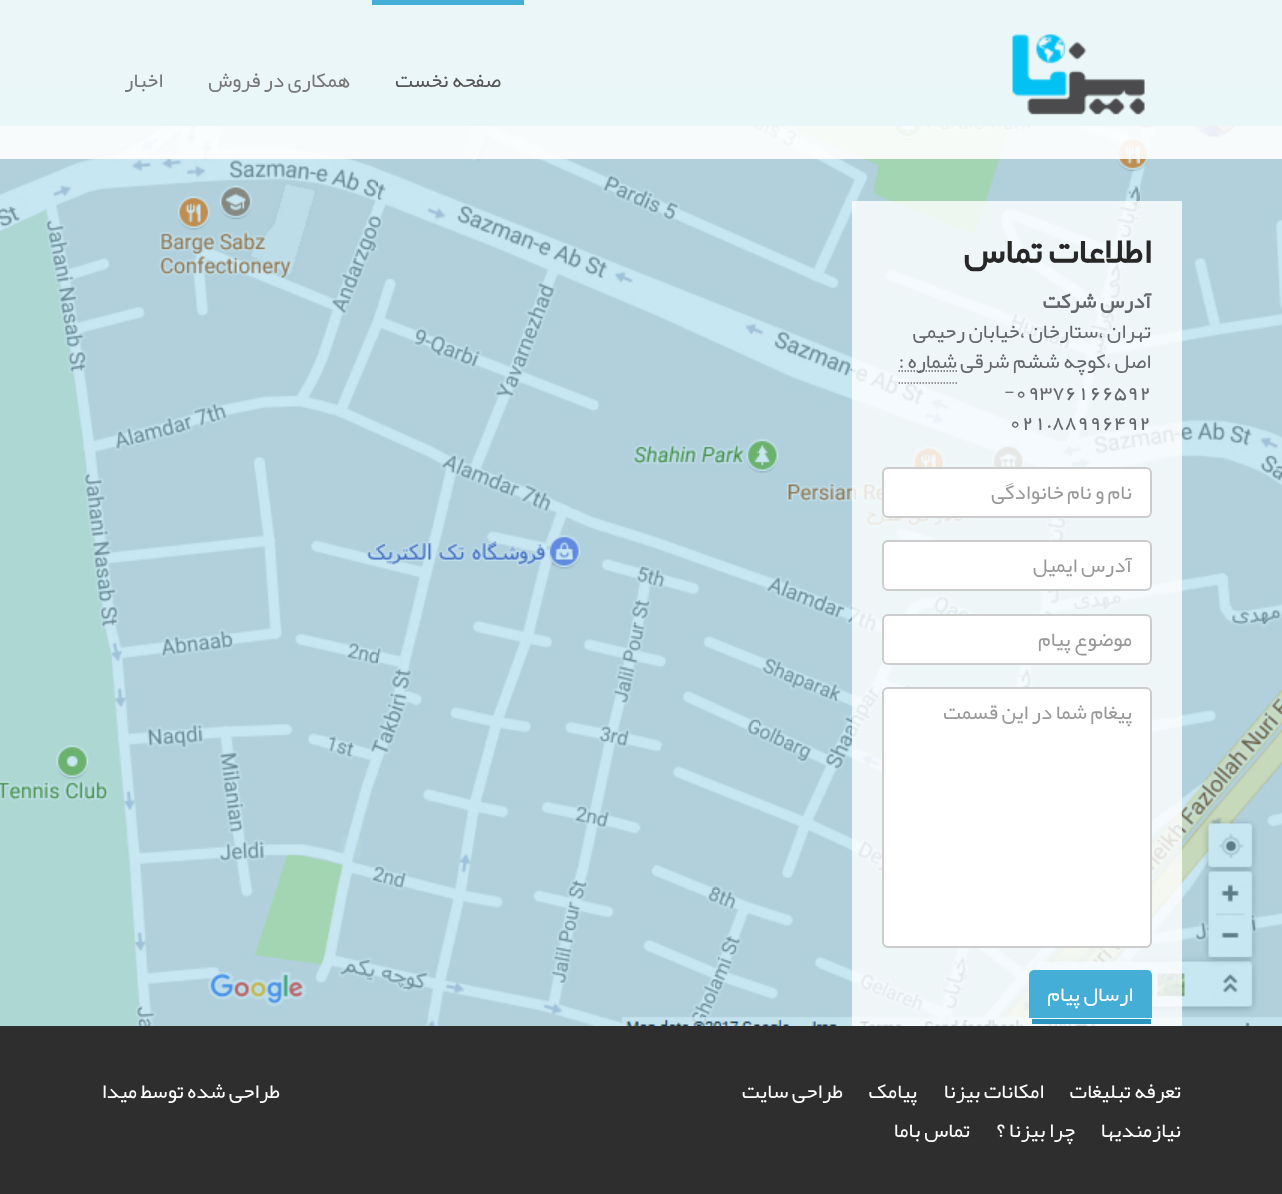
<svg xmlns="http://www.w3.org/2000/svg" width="1282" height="1194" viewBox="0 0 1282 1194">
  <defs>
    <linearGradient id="g1" gradientUnits="userSpaceOnUse" x1="641" y1="126" x2="641" y2="-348"><stop offset="0" stop-color="#2caab3"/><stop offset="1" stop-color="#2c8cb3"/></linearGradient>
  </defs>
  <rect width="100%" height="100%" fill="#ffffff"/>
  <rect x="0" y="0" width="1282" height="126" fill="url(#g1)"/>
  <image x="0" y="126" width="1282" height="900" href="img2.png"/>
  <rect x="0" y="0" width="1282" height="159" fill="#ffffff" fill-opacity="0.9"/>
  <image x="1012" y="34" width="133" height="81" href="img1.png"/>
  <rect x="372" y="0" width="152" height="5" fill="#45aed6"/>
  <text x="501" y="87" font-family="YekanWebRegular" font-size="21" direction="rtl" fill="#555555">صفحه نخست</text>
  <text x="350" y="87" font-family="YekanWebRegular" font-size="21" direction="rtl" fill="#777777">همکاری در فروش</text>
  <text x="163" y="87" font-family="YekanWebRegular" font-size="21" direction="rtl" fill="#777777">اخبار</text>
  <rect x="852" y="201" width="330" height="825" fill="#ffffff" fill-opacity="0.8"/>
  <text x="1151" y="263" font-family="YekanWebRegular" font-size="36" font-weight="bold" direction="rtl" fill="#272727">اطلاعات تماس</text>
  <text x="1151" y="308" font-family="YekanWebRegular" font-size="21" font-weight="bold" direction="rtl" fill="#64686d">آدرس شرکت</text>
  <text x="1151" y="338" font-family="YekanWebRegular" font-size="21" direction="rtl" fill="#64686d">تهران ،ستارخان ،خیابان رحیمی</text>
  <text x="1151" y="368" font-family="YekanWebRegular" font-size="21" direction="rtl" fill="#64686d">اصل ،کوچه ششم شرقی</text>
  <path d="M898.5 371H957" fill="none" stroke="#64686d" stroke-width="1.5" stroke-dasharray="1.5 1.5"/>
  <text x="957" y="368" font-family="YekanWebRegular" font-size="21" direction="rtl" fill="#64686d">شماره :</text>
  <path d="M898.5 383H957" fill="none" stroke="#777777" stroke-width="1.5" stroke-dasharray="1.5 1.5"/>
  <text x="1015" y="398" font-family="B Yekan" font-size="21" fill="#64686d">09376166592</text>
  <text x="1004" y="398" font-family="YekanWebRegular" font-size="21" fill="#64686d">-</text>
  <text x="1052" y="428" font-family="B Yekan" font-size="21" fill="#64686d">88996492</text>
  <text x="1046" y="428" font-family="YekanWebRegular" font-size="21" fill="#64686d">.</text>
  <text x="1009" y="428" font-family="B Yekan" font-size="21" fill="#64686d">021</text>
  <rect x="883" y="468" width="268" height="49" rx="5" fill="#ffffff" stroke="#cccccc" stroke-width="2"/>
  <text x="1132" y="499" font-family="YekanWebRegular" font-size="21" direction="rtl" fill="#999999">نام و نام خانوادگی</text>
  <rect x="883" y="541" width="268" height="49" rx="5" fill="#ffffff" stroke="#cccccc" stroke-width="2"/>
  <text x="1132" y="572" font-family="YekanWebRegular" font-size="21" direction="rtl" fill="#999999">آدرس ایمیل</text>
  <rect x="883" y="615" width="268" height="49" rx="5" fill="#ffffff" stroke="#cccccc" stroke-width="2"/>
  <text x="1132" y="646" font-family="YekanWebRegular" font-size="21" direction="rtl" fill="#999999">موضوع پیام</text>
  <rect x="883" y="688" width="268" height="259" rx="5" fill="#ffffff" stroke="#cccccc" stroke-width="2"/>
  <text x="1132" y="719" font-family="YekanWebRegular" font-size="21" direction="rtl" fill="#999999">پیغام شما در این قسمت</text>
  <path d="M1034 970H1148C1150 970 1152 973 1152 975V1018H1029V975C1029 973 1031 970 1034 970Z" fill="#45aed6"/>
  <rect x="1032" y="1019" width="119" height="5" fill="#2a95be"/>
  <text x="1133" y="1001" font-family="YekanWebRegular" font-size="21" direction="rtl" fill="#ffffff">ارسال پیام</text>
  <rect x="0" y="1026" width="1282" height="168" fill="#2e2e2e"/>
  <text x="1181" y="1098" font-family="YekanWebRegular" font-size="21" direction="rtl" fill="#ffffff">تعرفه تبلیغات</text>
  <text x="1044" y="1098" font-family="YekanWebRegular" font-size="21" direction="rtl" fill="#ffffff">امکانات بیزنا</text>
  <text x="917" y="1098" font-family="YekanWebRegular" font-size="21" direction="rtl" fill="#ffffff">پیامک</text>
  <text x="843" y="1098" font-family="YekanWebRegular" font-size="21" direction="rtl" fill="#ffffff">طراحی سایت</text>
  <text x="1181" y="1137" font-family="YekanWebRegular" font-size="21" direction="rtl" fill="#ffffff">نیازمندیها</text>
  <text x="1075" y="1137" font-family="YekanWebRegular" font-size="21" direction="rtl" fill="#ffffff">چرا بیزنا ؟</text>
  <text x="970" y="1137" font-family="YekanWebRegular" font-size="21" direction="rtl" fill="#ffffff">تماس باما</text>
  <text x="280" y="1098" font-family="YekanWebRegular" font-size="21" direction="rtl" fill="#ffffff">طراحی شده توسط</text>
  <text x="137" y="1098" font-family="YekanWebRegular" font-size="21" direction="rtl" fill="#ffffff">میدا</text>
</svg>
